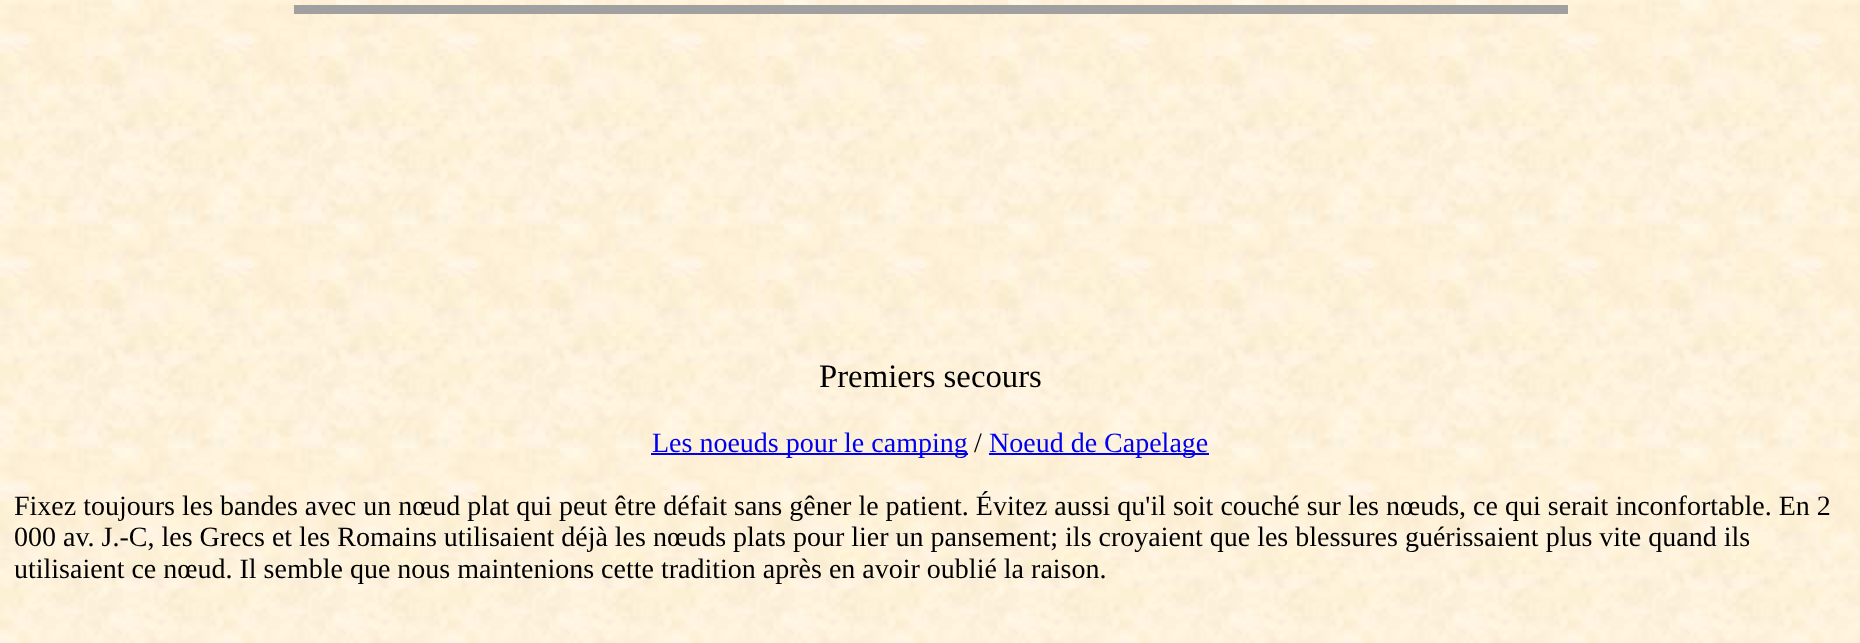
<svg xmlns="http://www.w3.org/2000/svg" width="1860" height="643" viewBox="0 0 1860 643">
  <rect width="100%" height="100%" fill="#ffffff"/>
  <image x="0" y="0" width="1860" height="643" href="img1.png"/>
  <rect x="294" y="5" width="1274" height="9" fill="#a0a0a0"/>
  <text x="819" y="387" font-family="Liberation Serif" font-size="32.75" fill="#000000">Premiers secours</text>
  <rect x="651" y="453" width="317" height="2" fill="#0000ee"/>
  <text x="652" y="452" font-family="Liberation Serif" font-size="28" fill="#0000ee">Les noeuds pour le camping</text>
  <text x="974" y="452" font-family="Liberation Serif" font-size="28" fill="#000000">/</text>
  <rect x="989" y="453" width="220" height="2" fill="#0000ee"/>
  <text x="989" y="452" font-family="Liberation Serif" font-size="28" fill="#0000ee">Noeud de Capelage</text>
  <text x="14" y="515" font-family="Liberation Serif" font-size="28" fill="#000000">Fixez toujours les bandes avec un nœud plat qui peut être défait sans gêner le patient. Évitez aussi qu'il soit couché sur les nœuds, ce qui serait inconfortable. En 2</text>
  <text x="14" y="546" font-family="Liberation Serif" font-size="28" fill="#000000">000 av. J.-C, les Grecs et les Romains utilisaient déjà les nœuds plats pour lier un pansement; ils croyaient que les blessures guérissaient plus vite quand ils</text>
  <text x="14" y="578" font-family="Liberation Serif" font-size="28" fill="#000000">utilisaient ce nœud. Il semble que nous maintenions cette tradition après en avoir oublié la raison.</text>
</svg>
